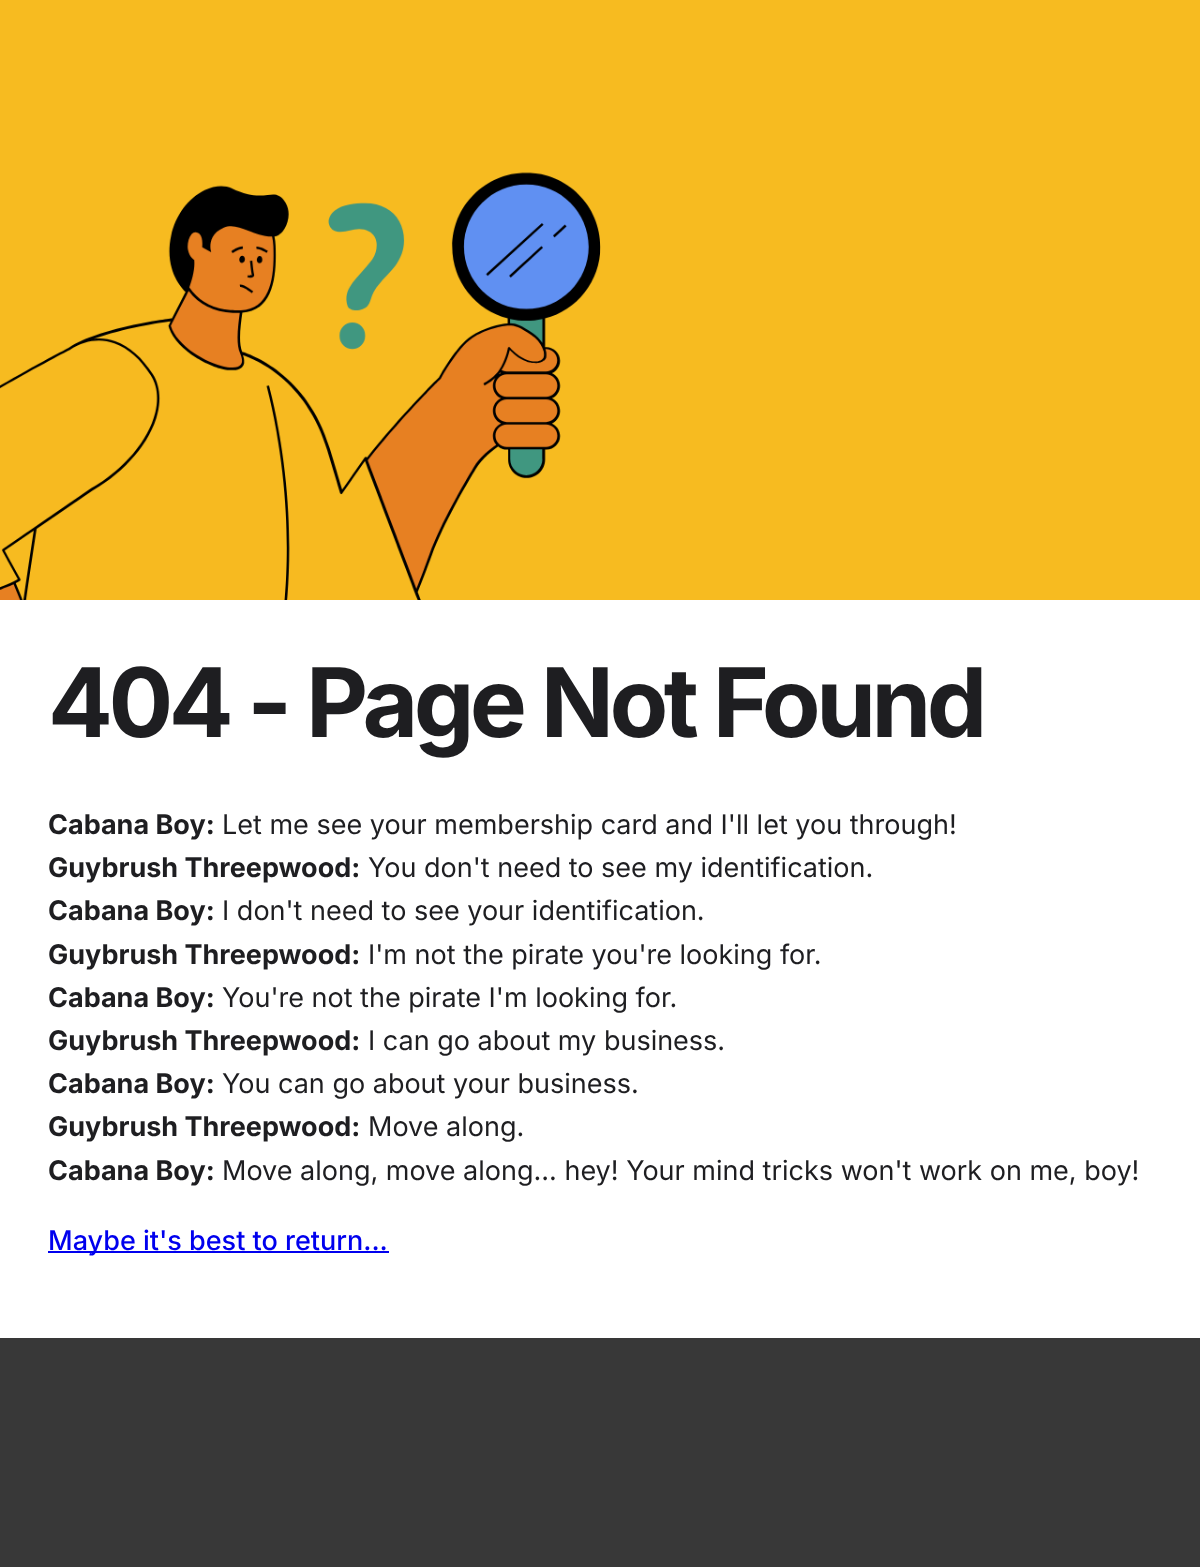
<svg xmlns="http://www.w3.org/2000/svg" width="1200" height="1567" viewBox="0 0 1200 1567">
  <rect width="100%" height="100%" fill="#383838"/>
  <rect x="0" y="600" width="1200" height="738" fill="#ffffff"/>
  <image x="0" y="0" width="1200" height="600" href="img1.png"/>
  <text x="48" y="737" font-family="Inter" font-size="96" font-weight="bold" letter-spacing="-4.5" fill="#1e1e21">404 - Page Not Found</text>
  <text x="48" y="834" font-family="Inter" font-size="27" font-weight="bold" fill="#1e1e21">Cabana Boy:</text>
  <text x="222" y="834" font-family="Inter" font-size="27" fill="#1e1e21">Let me see your membership card and I'll let you through!</text>
  <text x="48" y="877" font-family="Inter" font-size="27" font-weight="bold" fill="#1e1e21">Guybrush Threepwood:</text>
  <text x="368" y="877" font-family="Inter" font-size="27" fill="#1e1e21">You don't need to see my identification.</text>
  <text x="48" y="920" font-family="Inter" font-size="27" font-weight="bold" fill="#1e1e21">Cabana Boy:</text>
  <text x="222" y="920" font-family="Inter" font-size="27" fill="#1e1e21">I don't need to see your identification.</text>
  <text x="48" y="964" font-family="Inter" font-size="27" font-weight="bold" fill="#1e1e21">Guybrush Threepwood:</text>
  <text x="368" y="964" font-family="Inter" font-size="27" fill="#1e1e21">I'm not the pirate you're looking for.</text>
  <text x="48" y="1007" font-family="Inter" font-size="27" font-weight="bold" fill="#1e1e21">Cabana Boy:</text>
  <text x="222" y="1007" font-family="Inter" font-size="27" fill="#1e1e21">You're not the pirate I'm looking for.</text>
  <text x="48" y="1050" font-family="Inter" font-size="27" font-weight="bold" fill="#1e1e21">Guybrush Threepwood:</text>
  <text x="368" y="1050" font-family="Inter" font-size="27" fill="#1e1e21">I can go about my business.</text>
  <text x="48" y="1093" font-family="Inter" font-size="27" font-weight="bold" fill="#1e1e21">Cabana Boy:</text>
  <text x="222" y="1093" font-family="Inter" font-size="27" fill="#1e1e21">You can go about your business.</text>
  <text x="48" y="1136" font-family="Inter" font-size="27" font-weight="bold" fill="#1e1e21">Guybrush Threepwood:</text>
  <text x="368" y="1136" font-family="Inter" font-size="27" fill="#1e1e21">Move along.</text>
  <text x="48" y="1180" font-family="Inter" font-size="27" font-weight="bold" fill="#1e1e21">Cabana Boy:</text>
  <text x="222" y="1180" font-family="Inter" font-size="27" fill="#1e1e21">Move along, move along... hey! Your mind tricks won't work on me, boy!</text>
  <rect x="48" y="1251" width="341" height="2" fill="#0000ee"/>
  <text x="48" y="1250" font-family="Inter" font-size="27" font-weight="500" fill="#0000ee">Maybe it's best to return...</text>
</svg>
